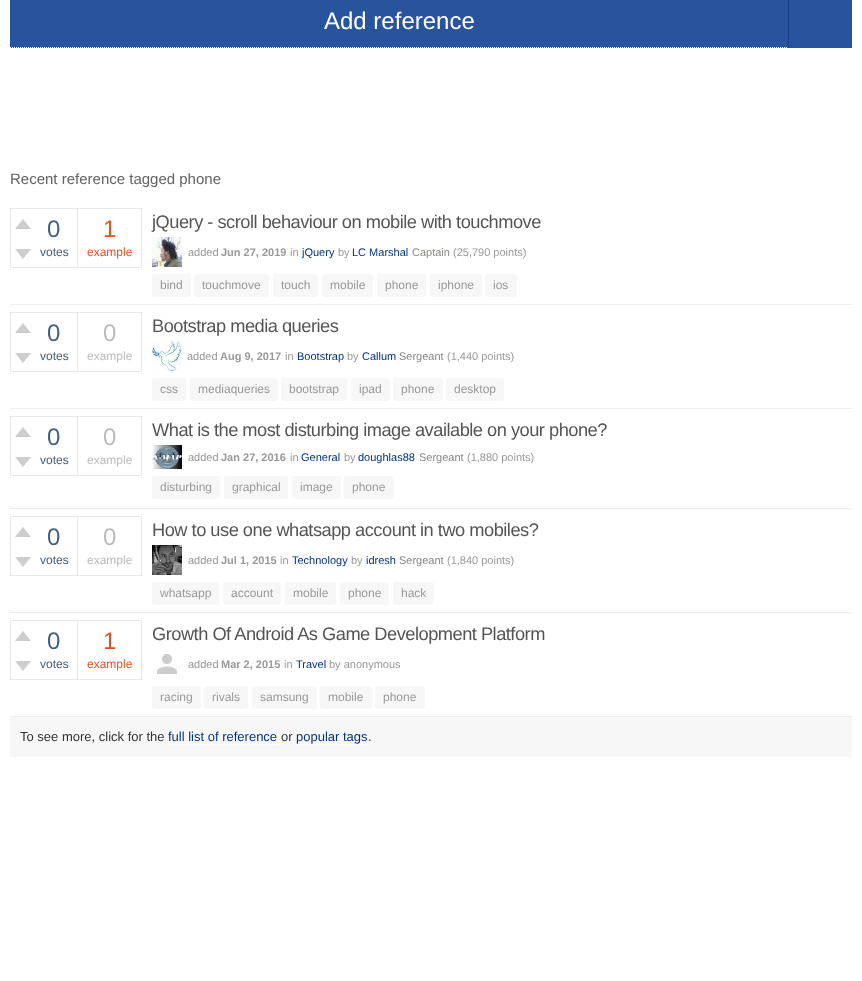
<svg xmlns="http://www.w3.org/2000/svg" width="862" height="981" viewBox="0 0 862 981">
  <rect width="100%" height="100%" fill="#ffffff"/>
  <rect x="10" y="0" width="778" height="48" fill="#28539d"/>
  <path d="M10 47.5H788" fill="none" stroke="#ffffff" stroke-dasharray="1 1"/>
  <text x="324" y="29" font-family="Liberation Sans" font-size="24" fill="#ffffff">Add reference</text>
  <rect x="789" y="0" width="63" height="48" fill="#28539d"/>
  <rect x="788" y="0" width="1" height="48" fill="#184188"/>
  <text x="10" y="184" font-family="Liberation Sans" font-size="15" fill="#626262">Recent reference tagged phone</text>
  <rect x="10" y="304" width="842" height="1" fill="#eeeeee"/>
  <rect x="10.5" y="208.5" width="67" height="59" fill="none" stroke="#e8e8e8"/>
  <image x="15" y="219" width="16" height="10" href="img1.png"/>
  <image x="15" y="249" width="16" height="10" href="img2.png"/>
  <text x="47" y="237" font-family="Liberation Sans" font-size="24" fill="#445f7a">0</text>
  <text x="40" y="256" font-family="Liberation Sans" font-size="12" fill="#445f7a">votes</text>
  <rect x="77.5" y="208.5" width="64" height="59" fill="none" stroke="#e8e8e8"/>
  <text x="103" y="237" font-family="Liberation Sans" font-size="24" fill="#de531b">1</text>
  <text x="87" y="256" font-family="Liberation Sans" font-size="12" fill="#de531b">example</text>
  <text x="152" y="228" font-family="Liberation Sans" font-size="18.25" letter-spacing="-0.5" fill="#555555">jQuery - scroll behaviour on mobile with touchmove</text>
  <image x="152" y="237" width="30" height="30" href="img3.png"/>
  <text x="188" y="256" font-family="Liberation Sans" font-size="11" fill="#999999">added</text>
  <text x="221" y="256" font-family="Liberation Sans" font-size="11" font-weight="bold" fill="#999999">Jun 27, 2019</text>
  <text x="290" y="256" font-family="Liberation Sans" font-size="11" fill="#999999">in</text>
  <text x="302" y="256" font-family="Liberation Sans" font-size="11" fill="#003388">jQuery</text>
  <text x="338" y="256" font-family="Liberation Sans" font-size="11" fill="#999999">by</text>
  <text x="352" y="256" font-family="Liberation Sans" font-size="11" fill="#003388">LC Marshal</text>
  <text x="412" y="256" font-family="Liberation Sans" font-size="11" fill="#8b8785">Captain</text>
  <text x="453" y="256" font-family="Liberation Sans" font-size="11" fill="#999999">(25,790 points)</text>
  <rect x="152" y="274" width="39" height="23" rx="3" fill="#f7f7f7"/>
  <text x="160" y="289" font-family="Liberation Sans" font-size="12" fill="#999999">bind</text>
  <rect x="194" y="274" width="75" height="23" rx="3" fill="#f7f7f7"/>
  <text x="202" y="289" font-family="Liberation Sans" font-size="12" fill="#999999">touchmove</text>
  <rect x="273" y="274" width="45" height="23" rx="3" fill="#f7f7f7"/>
  <text x="281" y="289" font-family="Liberation Sans" font-size="12" fill="#999999">touch</text>
  <rect x="322" y="274" width="51" height="23" rx="3" fill="#f7f7f7"/>
  <text x="330" y="289" font-family="Liberation Sans" font-size="12" fill="#999999">mobile</text>
  <rect x="377" y="274" width="49" height="23" rx="3" fill="#f7f7f7"/>
  <text x="385" y="289" font-family="Liberation Sans" font-size="12" fill="#999999">phone</text>
  <rect x="430" y="274" width="52" height="23" rx="3" fill="#f7f7f7"/>
  <text x="438" y="289" font-family="Liberation Sans" font-size="12" fill="#999999">iphone</text>
  <rect x="485" y="274" width="32" height="23" rx="3" fill="#f7f7f7"/>
  <text x="493" y="289" font-family="Liberation Sans" font-size="12" fill="#999999">ios</text>
  <rect x="10" y="408" width="842" height="1" fill="#eeeeee"/>
  <rect x="10.5" y="312.5" width="67" height="59" fill="none" stroke="#e8e8e8"/>
  <image x="15" y="323" width="16" height="10" href="img1.png"/>
  <image x="15" y="353" width="16" height="10" href="img2.png"/>
  <text x="47" y="341" font-family="Liberation Sans" font-size="24" fill="#445f7a">0</text>
  <text x="40" y="360" font-family="Liberation Sans" font-size="12" fill="#445f7a">votes</text>
  <rect x="77.5" y="312.5" width="64" height="59" fill="none" stroke="#e8e8e8"/>
  <text x="103" y="341" font-family="Liberation Sans" font-size="24" fill="#bbbbbb">0</text>
  <text x="87" y="360" font-family="Liberation Sans" font-size="12" fill="#bbbbbb">example</text>
  <text x="152" y="332" font-family="Liberation Sans" font-size="18.25" letter-spacing="-0.5" fill="#555555">Bootstrap media queries</text>
  <image x="152" y="341" width="29" height="30" href="img4.png"/>
  <text x="187" y="360" font-family="Liberation Sans" font-size="11" fill="#999999">added</text>
  <text x="220" y="360" font-family="Liberation Sans" font-size="11" font-weight="bold" fill="#999999">Aug 9, 2017</text>
  <text x="285" y="360" font-family="Liberation Sans" font-size="11" fill="#999999">in</text>
  <text x="297" y="360" font-family="Liberation Sans" font-size="11" fill="#003388">Bootstrap</text>
  <text x="347" y="360" font-family="Liberation Sans" font-size="11" fill="#999999">by</text>
  <text x="362" y="360" font-family="Liberation Sans" font-size="11" fill="#003388">Callum</text>
  <text x="399" y="360" font-family="Liberation Sans" font-size="11" fill="#8b8785">Sergeant</text>
  <text x="447" y="360" font-family="Liberation Sans" font-size="11" fill="#999999">(1,440 points)</text>
  <rect x="152" y="378" width="34" height="23" rx="3" fill="#f7f7f7"/>
  <text x="160" y="393" font-family="Liberation Sans" font-size="12" fill="#999999">css</text>
  <rect x="190" y="378" width="88" height="23" rx="3" fill="#f7f7f7"/>
  <text x="198" y="393" font-family="Liberation Sans" font-size="12" fill="#999999">mediaqueries</text>
  <rect x="281" y="378" width="66" height="23" rx="3" fill="#f7f7f7"/>
  <text x="289" y="393" font-family="Liberation Sans" font-size="12" fill="#999999">bootstrap</text>
  <rect x="351" y="378" width="39" height="23" rx="3" fill="#f7f7f7"/>
  <text x="359" y="393" font-family="Liberation Sans" font-size="12" fill="#999999">ipad</text>
  <rect x="393" y="378" width="50" height="23" rx="3" fill="#f7f7f7"/>
  <text x="401" y="393" font-family="Liberation Sans" font-size="12" fill="#999999">phone</text>
  <rect x="446" y="378" width="58" height="23" rx="3" fill="#f7f7f7"/>
  <text x="454" y="393" font-family="Liberation Sans" font-size="12" fill="#999999">desktop</text>
  <rect x="10" y="508" width="842" height="1" fill="#eeeeee"/>
  <rect x="10.5" y="416.5" width="67" height="59" fill="none" stroke="#e8e8e8"/>
  <image x="15" y="427" width="16" height="10" href="img1.png"/>
  <image x="15" y="457" width="16" height="10" href="img2.png"/>
  <text x="47" y="445" font-family="Liberation Sans" font-size="24" fill="#445f7a">0</text>
  <text x="40" y="464" font-family="Liberation Sans" font-size="12" fill="#445f7a">votes</text>
  <rect x="77.5" y="416.5" width="64" height="59" fill="none" stroke="#e8e8e8"/>
  <text x="103" y="445" font-family="Liberation Sans" font-size="24" fill="#bbbbbb">0</text>
  <text x="87" y="464" font-family="Liberation Sans" font-size="12" fill="#bbbbbb">example</text>
  <text x="152" y="436" font-family="Liberation Sans" font-size="18.25" letter-spacing="-0.5" fill="#555555">What is the most disturbing image available on your phone?</text>
  <image x="152" y="445" width="30" height="24" href="img5.png"/>
  <text x="188" y="461" font-family="Liberation Sans" font-size="11" fill="#999999">added</text>
  <text x="221" y="461" font-family="Liberation Sans" font-size="11" font-weight="bold" fill="#999999">Jan 27, 2016</text>
  <text x="290" y="461" font-family="Liberation Sans" font-size="11" fill="#999999">in</text>
  <text x="301" y="461" font-family="Liberation Sans" font-size="11" fill="#003388">General</text>
  <text x="344" y="461" font-family="Liberation Sans" font-size="11" fill="#999999">by</text>
  <text x="358" y="461" font-family="Liberation Sans" font-size="11" fill="#003388">doughlas88</text>
  <text x="419" y="461" font-family="Liberation Sans" font-size="11" fill="#8b8785">Sergeant</text>
  <text x="467" y="461" font-family="Liberation Sans" font-size="11" fill="#999999">(1,880 points)</text>
  <rect x="152" y="476" width="68" height="23" rx="3" fill="#f7f7f7"/>
  <text x="160" y="491" font-family="Liberation Sans" font-size="12" fill="#999999">disturbing</text>
  <rect x="224" y="476" width="64" height="23" rx="3" fill="#f7f7f7"/>
  <text x="232" y="491" font-family="Liberation Sans" font-size="12" fill="#999999">graphical</text>
  <rect x="292" y="476" width="49" height="23" rx="3" fill="#f7f7f7"/>
  <text x="300" y="491" font-family="Liberation Sans" font-size="12" fill="#999999">image</text>
  <rect x="344" y="476" width="50" height="23" rx="3" fill="#f7f7f7"/>
  <text x="352" y="491" font-family="Liberation Sans" font-size="12" fill="#999999">phone</text>
  <rect x="10" y="612" width="842" height="1" fill="#eeeeee"/>
  <rect x="10.5" y="516.5" width="67" height="59" fill="none" stroke="#e8e8e8"/>
  <image x="15" y="527" width="16" height="10" href="img1.png"/>
  <image x="15" y="557" width="16" height="10" href="img2.png"/>
  <text x="47" y="545" font-family="Liberation Sans" font-size="24" fill="#445f7a">0</text>
  <text x="40" y="564" font-family="Liberation Sans" font-size="12" fill="#445f7a">votes</text>
  <rect x="77.5" y="516.5" width="64" height="59" fill="none" stroke="#e8e8e8"/>
  <text x="103" y="545" font-family="Liberation Sans" font-size="24" fill="#bbbbbb">0</text>
  <text x="87" y="564" font-family="Liberation Sans" font-size="12" fill="#bbbbbb">example</text>
  <text x="152" y="536" font-family="Liberation Sans" font-size="18.25" letter-spacing="-0.5" fill="#555555">How to use one whatsapp account in two mobiles?</text>
  <image x="152" y="545" width="30" height="30" href="img6.png"/>
  <text x="188" y="564" font-family="Liberation Sans" font-size="11" fill="#999999">added</text>
  <text x="221" y="564" font-family="Liberation Sans" font-size="11" font-weight="bold" fill="#999999">Jul 1, 2015</text>
  <text x="280" y="564" font-family="Liberation Sans" font-size="11" fill="#999999">in</text>
  <text x="292" y="564" font-family="Liberation Sans" font-size="11" fill="#003388">Technology</text>
  <text x="351" y="564" font-family="Liberation Sans" font-size="11" fill="#999999">by</text>
  <text x="366" y="564" font-family="Liberation Sans" font-size="11" fill="#003388">idresh</text>
  <text x="399" y="564" font-family="Liberation Sans" font-size="11" fill="#8b8785">Sergeant</text>
  <text x="447" y="564" font-family="Liberation Sans" font-size="11" fill="#999999">(1,840 points)</text>
  <rect x="152" y="582" width="67" height="23" rx="3" fill="#f7f7f7"/>
  <text x="160" y="597" font-family="Liberation Sans" font-size="12" fill="#999999">whatsapp</text>
  <rect x="223" y="582" width="58" height="23" rx="3" fill="#f7f7f7"/>
  <text x="231" y="597" font-family="Liberation Sans" font-size="12" fill="#999999">account</text>
  <rect x="285" y="582" width="51" height="23" rx="3" fill="#f7f7f7"/>
  <text x="293" y="597" font-family="Liberation Sans" font-size="12" fill="#999999">mobile</text>
  <rect x="340" y="582" width="49" height="23" rx="3" fill="#f7f7f7"/>
  <text x="348" y="597" font-family="Liberation Sans" font-size="12" fill="#999999">phone</text>
  <rect x="393" y="582" width="41" height="23" rx="3" fill="#f7f7f7"/>
  <text x="401" y="597" font-family="Liberation Sans" font-size="12" fill="#999999">hack</text>
  <rect x="10" y="716" width="842" height="1" fill="#eeeeee"/>
  <rect x="10.5" y="620.5" width="67" height="59" fill="none" stroke="#e8e8e8"/>
  <image x="15" y="631" width="16" height="10" href="img1.png"/>
  <image x="15" y="661" width="16" height="10" href="img2.png"/>
  <text x="47" y="649" font-family="Liberation Sans" font-size="24" fill="#445f7a">0</text>
  <text x="40" y="668" font-family="Liberation Sans" font-size="12" fill="#445f7a">votes</text>
  <rect x="77.5" y="620.5" width="64" height="59" fill="none" stroke="#e8e8e8"/>
  <text x="103" y="649" font-family="Liberation Sans" font-size="24" fill="#de531b">1</text>
  <text x="87" y="668" font-family="Liberation Sans" font-size="12" fill="#de531b">example</text>
  <text x="152" y="640" font-family="Liberation Sans" font-size="18.25" letter-spacing="-0.5" fill="#555555">Growth Of Android As Game Development Platform</text>
  <image x="153" y="654" width="27" height="25" href="img7.png"/>
  <text x="188" y="668" font-family="Liberation Sans" font-size="11" fill="#999999">added</text>
  <text x="221" y="668" font-family="Liberation Sans" font-size="11" font-weight="bold" fill="#999999">Mar 2, 2015</text>
  <text x="284" y="668" font-family="Liberation Sans" font-size="11" fill="#999999">in</text>
  <text x="296" y="668" font-family="Liberation Sans" font-size="11" fill="#003388">Travel</text>
  <text x="329" y="668" font-family="Liberation Sans" font-size="11" fill="#999999">by anonymous</text>
  <rect x="152" y="686" width="49" height="23" rx="3" fill="#f7f7f7"/>
  <text x="160" y="701" font-family="Liberation Sans" font-size="12" fill="#999999">racing</text>
  <rect x="204" y="686" width="44" height="23" rx="3" fill="#f7f7f7"/>
  <text x="212" y="701" font-family="Liberation Sans" font-size="12" fill="#999999">rivals</text>
  <rect x="252" y="686" width="65" height="23" rx="3" fill="#f7f7f7"/>
  <text x="260" y="701" font-family="Liberation Sans" font-size="12" fill="#999999">samsung</text>
  <rect x="320" y="686" width="52" height="23" rx="3" fill="#f7f7f7"/>
  <text x="328" y="701" font-family="Liberation Sans" font-size="12" fill="#999999">mobile</text>
  <rect x="375" y="686" width="50" height="23" rx="3" fill="#f7f7f7"/>
  <text x="383" y="701" font-family="Liberation Sans" font-size="12" fill="#999999">phone</text>
  <rect x="10" y="717" width="842" height="40" fill="#f7f7f7"/>
  <text x="20" y="741" font-family="Liberation Sans" font-size="13" fill="#333333">To see more, click for the</text>
  <text x="168" y="741" font-family="Liberation Sans" font-size="13" fill="#003388">full list of reference</text>
  <path d="M168 744.5H277" fill="none" stroke="#ffffff" stroke-dasharray="1 1"/>
  <text x="281" y="741" font-family="Liberation Sans" font-size="13" fill="#333333">or</text>
  <text x="296" y="741" font-family="Liberation Sans" font-size="13" fill="#003388">popular tags</text>
  <path d="M296 744.5H368" fill="none" stroke="#ffffff" stroke-dasharray="1 1"/>
  <text x="368" y="741" font-family="Liberation Sans" font-size="13" fill="#333333">.</text>
</svg>
